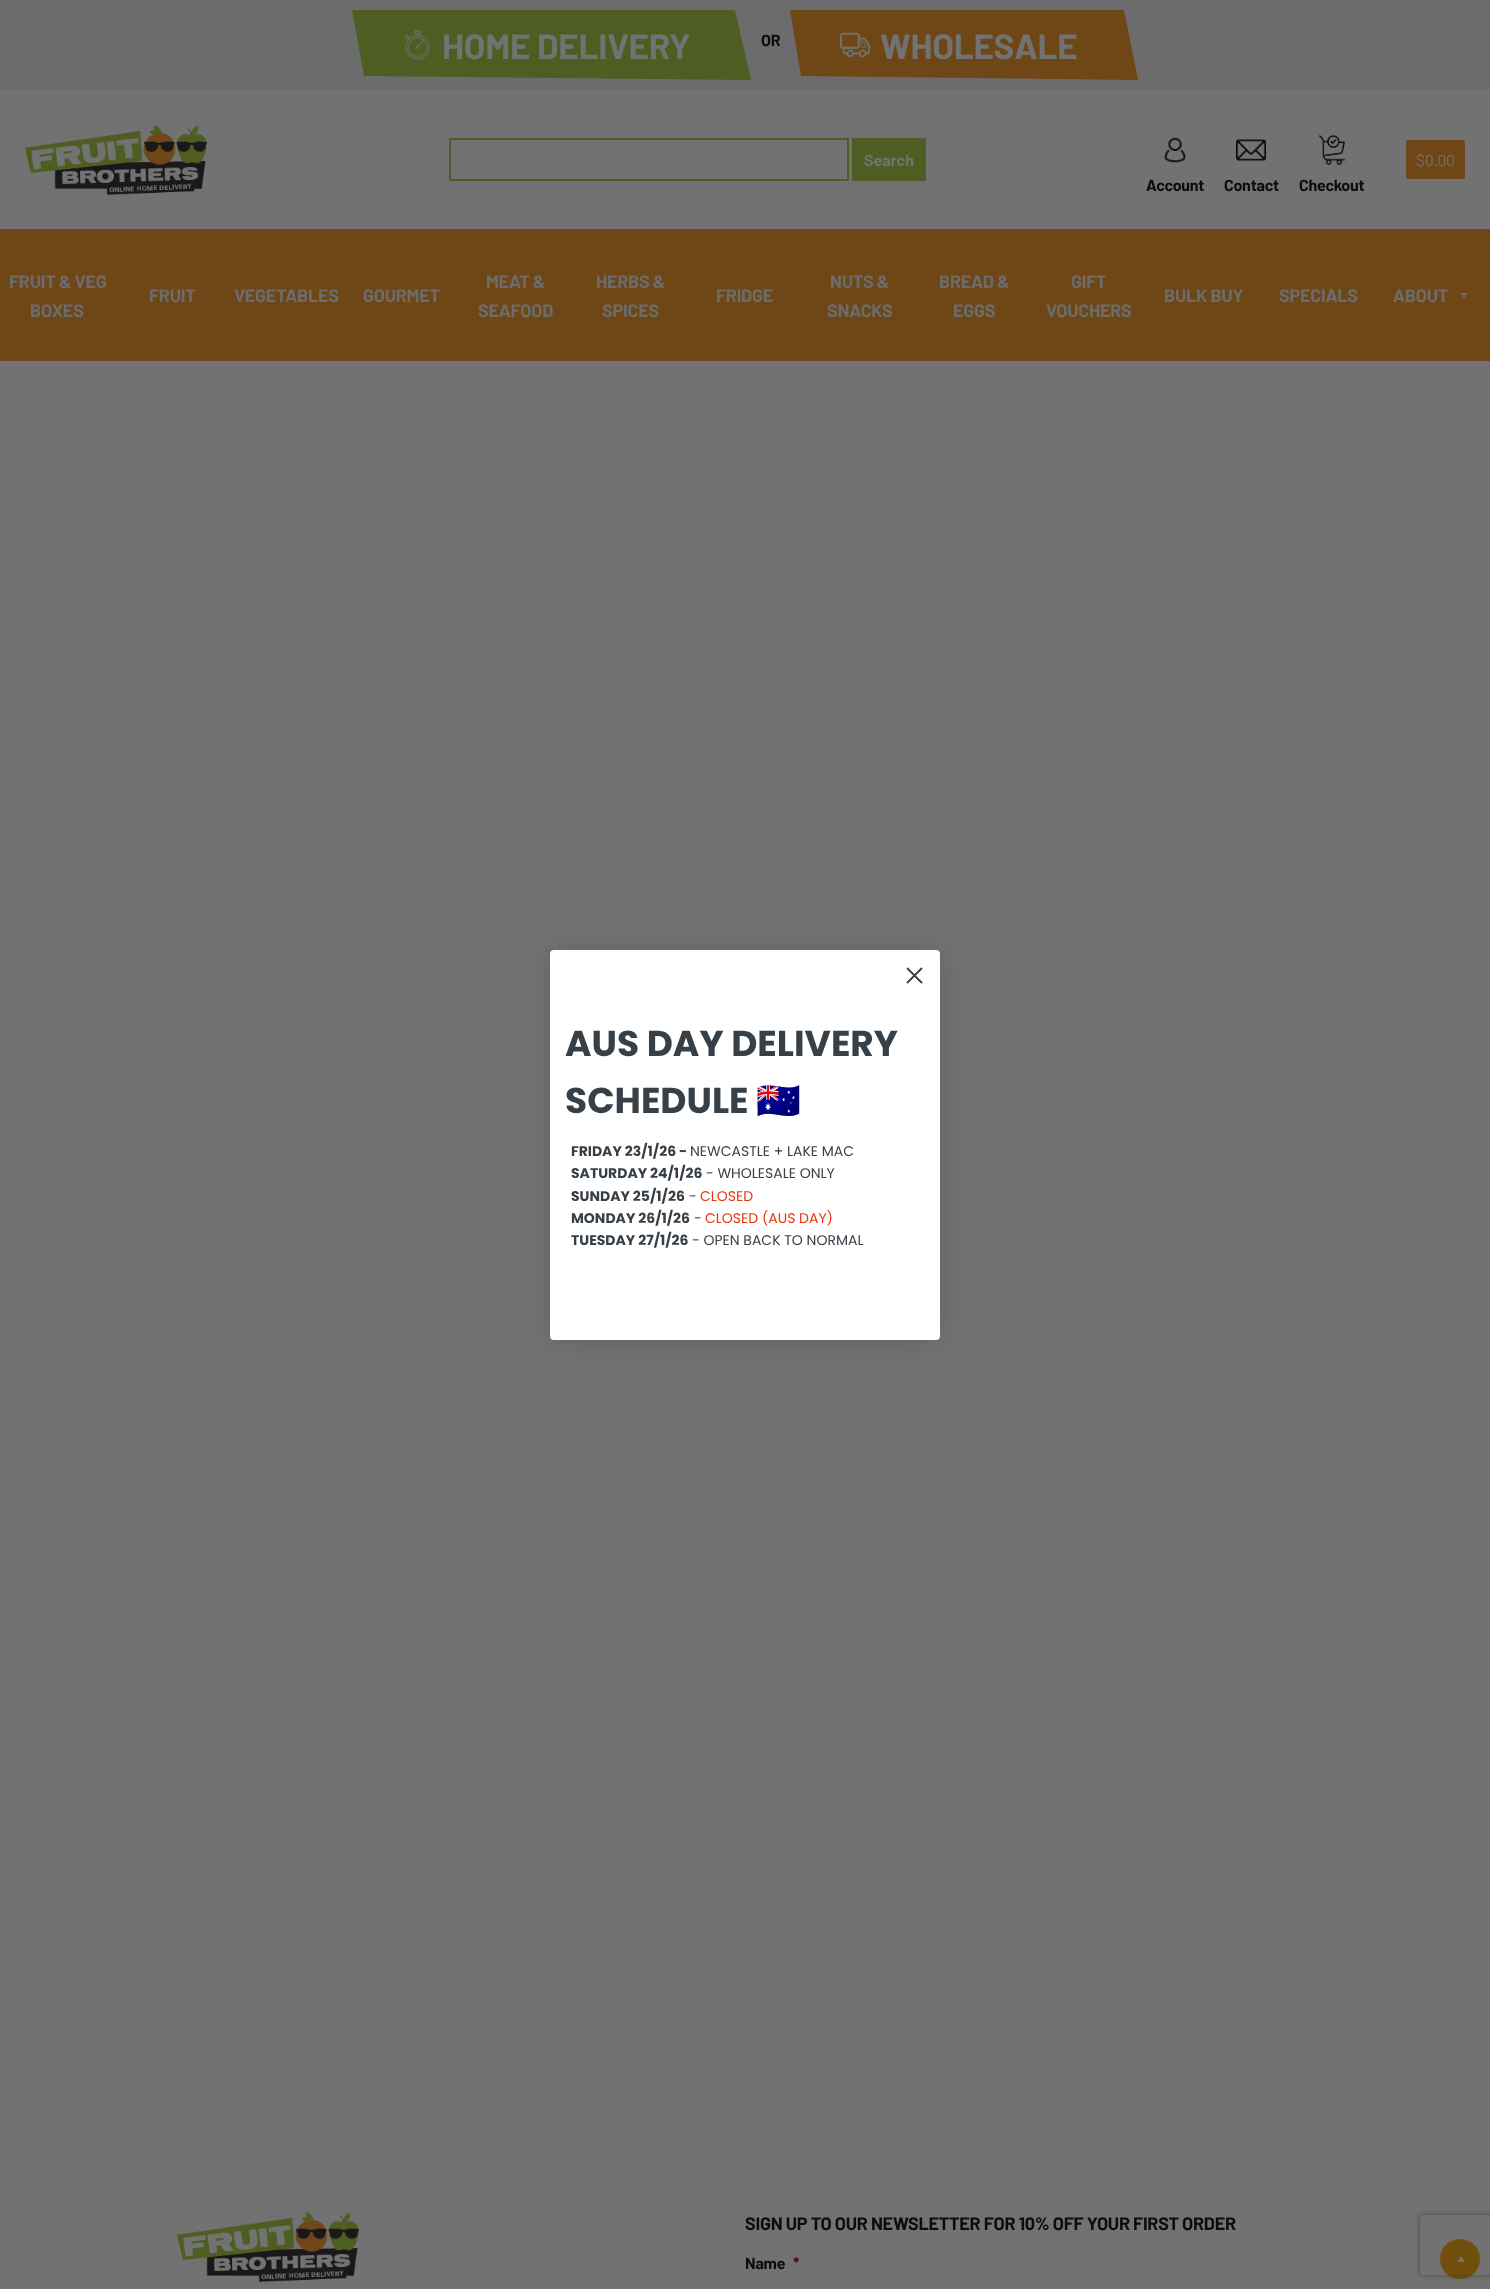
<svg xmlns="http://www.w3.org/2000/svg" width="1490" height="2289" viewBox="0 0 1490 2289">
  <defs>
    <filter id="blur1" x="-50%" y="-200%" width="200%" height="500%"><feGaussianBlur stdDeviation="15"/></filter>
    <clipPath id="clip1"><path d="M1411 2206H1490V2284H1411ZM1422 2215H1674C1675 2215 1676 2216 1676 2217V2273C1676 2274 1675 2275 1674 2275H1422C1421 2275 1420 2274 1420 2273V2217C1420 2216 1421 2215 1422 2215Z" clip-rule="evenodd"/></clipPath>
    <filter id="blur2" x="-50%" y="-200%" width="200%" height="500%"><feGaussianBlur stdDeviation="2.5"/></filter>
  </defs>
  <rect width="100%" height="100%" fill="#727272"/>
  <rect x="0" y="0" width="1490" height="90" fill="#6c6c6c"/>
  <path d="M352 10L364 76L751 80L735 10Z" fill="#4e5e22"/>
  <image x="404" y="30" width="27" height="30" href="img1.png"/>
  <text x="442" y="59" font-family="Barlow" font-size="35" font-weight="bold" letter-spacing="-0.25" fill="#727272">HOME DELIVERY</text>
  <text x="761" y="46" font-family="Barlow" font-size="16" font-weight="bold" letter-spacing="-0.25" fill="#0c0c0c">OR</text>
  <path d="M790 10L801 76L1138 80L1124 10Z" fill="#6f4717"/>
  <image x="840" y="32" width="30" height="26" href="img2.png"/>
  <text x="880" y="59" font-family="Barlow" font-size="35" font-weight="bold" letter-spacing="-0.25" fill="#727272">WHOLESALE</text>
  <image x="25" y="125" width="182" height="70" href="img3.png"/>
  <rect x="450" y="139" width="398" height="41" fill="none" stroke="#4e5e22" stroke-width="2"/>
  <rect x="852" y="138" width="74" height="43" fill="#4e5e22"/>
  <text x="864" y="166" font-family="Barlow" font-size="16" font-weight="bold" fill="#727272">Search</text>
  <rect x="1406" y="140" width="59" height="39" rx="2" fill="#6f4717"/>
  <text x="1416" y="166" font-family="Barlow" font-size="16" letter-spacing="-0.25" fill="#727272">$0.00</text>
  <image x="1164" y="137" width="22" height="26" href="img4.png"/>
  <text x="1146" y="191" font-family="Barlow" font-size="16" font-weight="bold" letter-spacing="-0.25" fill="#0c0c0c">Account</text>
  <image x="1236" y="139" width="30" height="22" href="img5.png"/>
  <text x="1224" y="191" font-family="Barlow" font-size="16" font-weight="bold" letter-spacing="-0.25" fill="#0c0c0c">Contact</text>
  <image x="1318" y="135" width="28" height="30" href="img6.png"/>
  <text x="1299" y="191" font-family="Barlow" font-size="16" font-weight="bold" letter-spacing="-0.25" fill="#0c0c0c">Checkout</text>
  <rect x="0" y="229" width="1490" height="132" fill="#6f4717"/>
  <text x="9" y="288" font-family="Barlow" font-size="18" font-weight="bold" letter-spacing="-0.25" fill="#6c6c6c">FRUIT &amp; VEG</text>
  <text x="30" y="317" font-family="Barlow" font-size="18" font-weight="bold" letter-spacing="-0.25" fill="#6c6c6c">BOXES</text>
  <text x="149" y="302" font-family="Barlow" font-size="18" font-weight="bold" letter-spacing="-0.25" fill="#6c6c6c">FRUIT</text>
  <text x="234" y="302" font-family="Barlow" font-size="18" font-weight="bold" letter-spacing="-0.25" fill="#6c6c6c">VEGETABLES</text>
  <text x="363" y="302" font-family="Barlow" font-size="18" font-weight="bold" letter-spacing="-0.25" fill="#6c6c6c">GOURMET</text>
  <text x="486" y="288" font-family="Barlow" font-size="18" font-weight="bold" letter-spacing="-0.25" fill="#6c6c6c">MEAT &amp;</text>
  <text x="478" y="317" font-family="Barlow" font-size="18" font-weight="bold" letter-spacing="-0.25" fill="#6c6c6c">SEAFOOD</text>
  <text x="596" y="288" font-family="Barlow" font-size="18" font-weight="bold" letter-spacing="-0.25" fill="#6c6c6c">HERBS &amp;</text>
  <text x="602" y="317" font-family="Barlow" font-size="18" font-weight="bold" letter-spacing="-0.25" fill="#6c6c6c">SPICES</text>
  <text x="716" y="302" font-family="Barlow" font-size="18" font-weight="bold" letter-spacing="-0.25" fill="#6c6c6c">FRIDGE</text>
  <text x="830" y="288" font-family="Barlow" font-size="18" font-weight="bold" letter-spacing="-0.25" fill="#6c6c6c">NUTS &amp;</text>
  <text x="827" y="317" font-family="Barlow" font-size="18" font-weight="bold" letter-spacing="-0.25" fill="#6c6c6c">SNACKS</text>
  <text x="939" y="288" font-family="Barlow" font-size="18" font-weight="bold" letter-spacing="-0.25" fill="#6c6c6c">BREAD &amp;</text>
  <text x="953" y="317" font-family="Barlow" font-size="18" font-weight="bold" letter-spacing="-0.25" fill="#6c6c6c">EGGS</text>
  <text x="1071" y="288" font-family="Barlow" font-size="18" font-weight="bold" letter-spacing="-0.25" fill="#6c6c6c">GIFT</text>
  <text x="1046" y="317" font-family="Barlow" font-size="18" font-weight="bold" letter-spacing="-0.25" fill="#6c6c6c">VOUCHERS</text>
  <text x="1164" y="302" font-family="Barlow" font-size="18" font-weight="bold" letter-spacing="-0.25" fill="#6c6c6c">BULK BUY</text>
  <text x="1279" y="302" font-family="Barlow" font-size="18" font-weight="bold" letter-spacing="-0.25" fill="#6c6c6c">SPECIALS</text>
  <text x="1393" y="302" font-family="Barlow" font-size="18" font-weight="bold" letter-spacing="-0.25" fill="#6c6c6c">ABOUT</text>
  <path d="M1467.5 293L1464 298.5L1460.5 293Z" fill="#6c6c6c"/>
  <rect x="550" y="950" width="390" height="390" rx="4" fill="#000000" fill-opacity="0.15" filter="url(#blur1)"/>
  <rect x="550" y="950" width="390" height="390" rx="4" fill="#ffffff"/>
  <path d="M907.5 968.5L921.5 982.5M907.5 982.5L921.5 968.5Z" fill="none" stroke="#373f47" stroke-width="1.8" stroke-linecap="round" stroke-linejoin="round"/>
  <text x="565" y="1056" font-family="Poppins" font-size="36" font-weight="bold" fill="#373f47">AUS DAY DELIVERY</text>
  <text x="565" y="1113" font-family="Poppins" font-size="36" font-weight="bold" fill="#373f47">SCHEDULE</text>
  <text x="756" y="1113" font-family="Noto Color Emoji" font-size="36" font-weight="bold" fill="#373f47">🇦🇺</text>
  <text x="571" y="1156" font-family="Poppins" font-size="14" font-weight="bold" fill="#373f47">FRIDAY 23/1/26 -</text>
  <text x="690" y="1156" font-family="Poppins" font-size="14" fill="#373f47">NEWCASTLE + LAKE MAC</text>
  <text x="571" y="1178" font-family="Poppins" font-size="14" font-weight="bold" fill="#373f47">SATURDAY 24/1/26</text>
  <text x="706" y="1178" font-family="Poppins" font-size="14" fill="#373f47">- WHOLESALE ONLY</text>
  <text x="571" y="1201" font-family="Poppins" font-size="14" font-weight="bold" fill="#373f47">SUNDAY 25/1/26</text>
  <text x="689" y="1201" font-family="Poppins" font-size="14" fill="#373f47">-</text>
  <text x="700" y="1201" font-family="Poppins" font-size="14" fill="#e9360c">CLOSED</text>
  <text x="571" y="1223" font-family="Poppins" font-size="14" font-weight="bold" fill="#373f47">MONDAY 26/1/26</text>
  <text x="694" y="1223" font-family="Poppins" font-size="14" fill="#373f47">-</text>
  <text x="705" y="1223" font-family="Poppins" font-size="14" fill="#e9360c">CLOSED (AUS DAY)</text>
  <text x="571" y="1245" font-family="Poppins" font-size="14" font-weight="bold" fill="#373f47">TUESDAY 27/1/26</text>
  <text x="692" y="1245" font-family="Poppins" font-size="14" fill="#373f47">- OPEN BACK TO NORMAL</text>
  <image x="177" y="2212" width="182" height="70" href="img7.png"/>
  <text x="745" y="2230" font-family="Barlow" font-size="18" font-weight="bold" letter-spacing="-0.25" fill="#0c0c0c">SIGN UP TO OUR NEWSLETTER FOR 10% OFF YOUR FIRST ORDER</text>
  <text x="745" y="2269" font-family="Barlow" font-size="16" font-weight="bold" letter-spacing="-0.25" fill="#0c0c0c">Name</text>
  <text x="793" y="2269" font-family="Barlow" font-size="16" font-weight="bold" letter-spacing="-0.25" fill="#3c0c0c">*</text>
  <circle cx="1460" cy="2259" r="20" fill="#724e0c"/>
  <path d="M1461 2256L1457 2262H1465Z" fill="#727272"/>
  <g clip-path="url(#clip1)">
    <rect x="1420" y="2215" width="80" height="60" rx="2" fill="#3f3f3f" filter="url(#blur2)"/>
  </g>
</svg>
